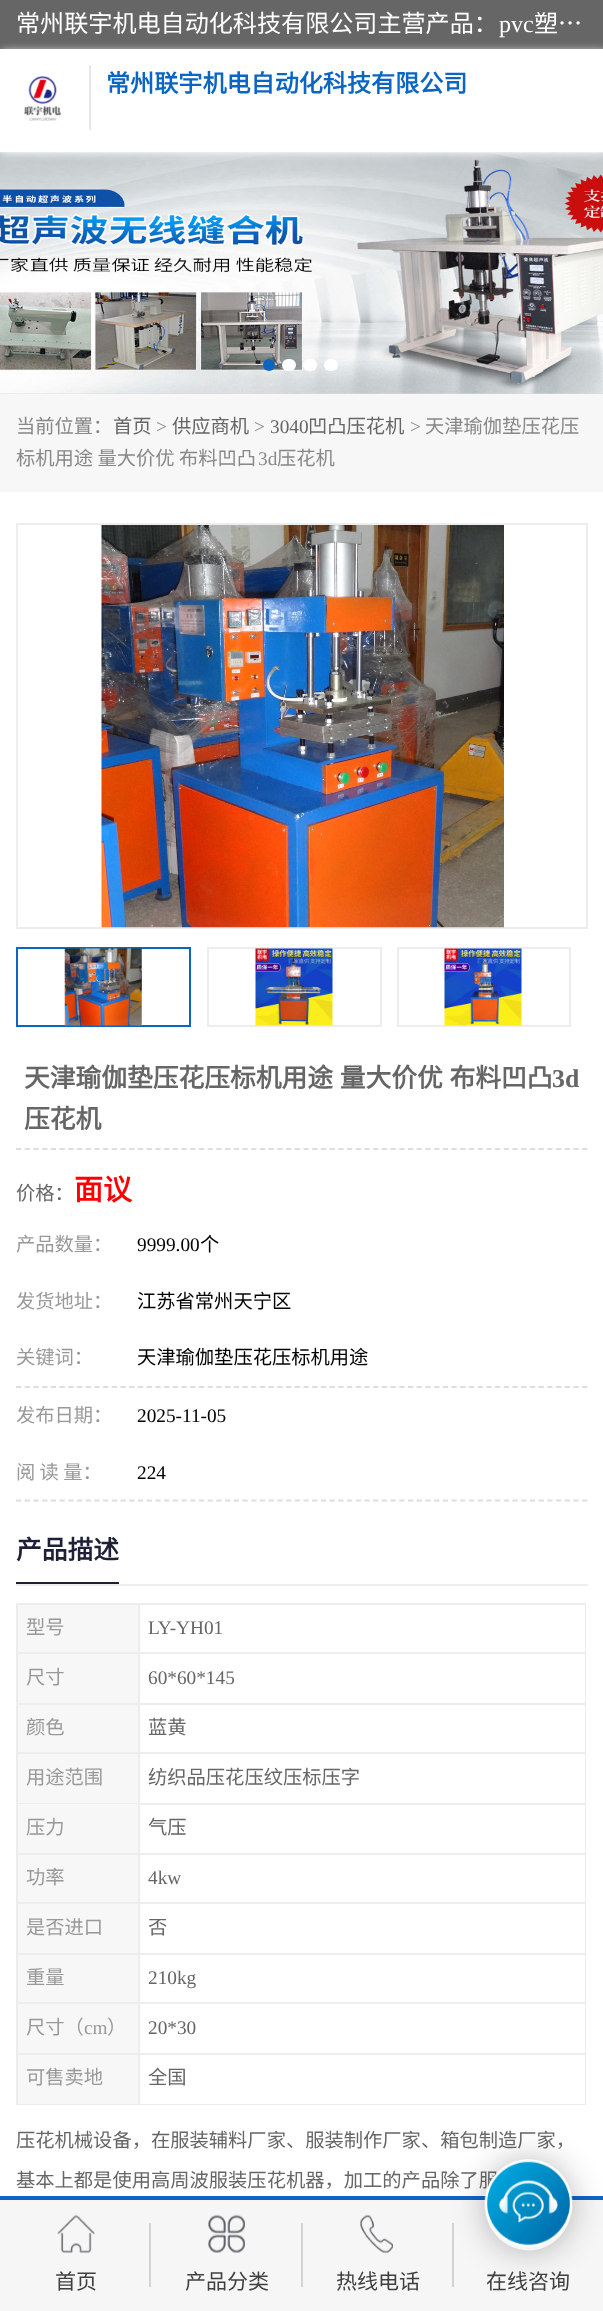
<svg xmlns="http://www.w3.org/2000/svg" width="603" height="2311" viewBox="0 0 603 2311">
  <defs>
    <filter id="blur1" x="-50%" y="-200%" width="200%" height="500%"><feGaussianBlur stdDeviation="4.5"/></filter>
    <clipPath id="clip1"><path d="M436 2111H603V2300H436ZM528.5 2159.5C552.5 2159.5 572 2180 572 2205C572 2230 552.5 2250.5 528.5 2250.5C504.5 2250.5 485 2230 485 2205C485 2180 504.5 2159.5 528.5 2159.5Z" clip-rule="evenodd"/></clipPath>
    <filter id="blur2" x="-50%" y="-200%" width="200%" height="500%"><feGaussianBlur stdDeviation="16"/></filter>
  </defs>
  <rect width="100%" height="100%" fill="#ffffff"/>
  <rect x="0" y="0" width="603" height="49" fill="#666666"/>
  <text x="16" y="32" font-family="Noto Sans CJK SC" font-size="24.1" fill="#ffffff">常州联宇机电自动化科技有限公司主营产品：</text>
  <text x="499" y="32" font-family="Liberation Serif" font-size="24.1" fill="#ffffff">pvc</text>
  <text x="534" y="32" font-family="Noto Sans CJK SC" font-size="24.1" fill="#ffffff">塑…</text>
  <rect x="0" y="152" width="603" height="242" fill="#dddddd"/>
  <image x="0" y="152" width="603" height="242" href="img2.png"/>
  <rect x="2" y="51" width="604" height="103" fill="#f5f5f5" filter="url(#blur1)"/>
  <rect x="0" y="49" width="603" height="103" fill="#ffffff"/>
  <image x="24" y="76" width="38" height="45" href="img1.png"/>
  <rect x="89" y="65" width="2" height="65" fill="#e7e7e7"/>
  <text x="106" y="92" font-family="Noto Sans CJK SC" font-size="24.1" font-weight="bold" fill="#0b66c3">常州联宇机电自动化科技有限公司</text>
  <circle cx="269" cy="365" r="6" fill="#0b66c3"/>
  <rect x="282" y="359" width="14" height="12" rx="6" fill="#ffffff"/>
  <rect x="303" y="359" width="14" height="12" rx="6" fill="#ffffff"/>
  <rect x="324" y="359" width="14" height="12" rx="6" fill="#ffffff"/>
  <rect x="0" y="394" width="603" height="98" fill="#f7f7f7"/>
  <text x="16" y="433" font-family="Noto Sans CJK SC" font-size="19.3" fill="#888888">当前位置：</text>
  <text x="113" y="433" font-family="Noto Sans CJK SC" font-size="19.3" fill="#666666">首页</text>
  <text x="156" y="433" font-family="Liberation Serif" font-size="19.3" fill="#888888">&gt;</text>
  <text x="172" y="433" font-family="Noto Sans CJK SC" font-size="19.3" fill="#666666">供应商机</text>
  <text x="254" y="433" font-family="Liberation Serif" font-size="19.3" fill="#888888">&gt;</text>
  <text x="270" y="433" font-family="Liberation Serif" font-size="19.3" fill="#666666">3040</text>
  <text x="308" y="433" font-family="Noto Sans CJK SC" font-size="19.3" fill="#666666">凹凸压花机</text>
  <text x="410" y="433" font-family="Liberation Serif" font-size="19.3" fill="#888888">&gt;</text>
  <text x="425" y="433" font-family="Noto Sans CJK SC" font-size="19.3" fill="#888888">天津瑜伽垫压花压</text>
  <text x="16" y="465" font-family="Noto Sans CJK SC" font-size="19.3" fill="#888888">标机用途 量大价优 布料凹凸</text>
  <text x="258" y="465" font-family="Liberation Serif" font-size="19.3" fill="#888888">3d</text>
  <text x="277" y="465" font-family="Noto Sans CJK SC" font-size="19.3" fill="#888888">压花机</text>
  <rect x="17" y="524" width="570" height="404" fill="none" stroke="#ededed" stroke-width="2"/>
  <image x="101" y="525" width="403" height="403" href="img3.png"/>
  <rect x="17" y="948" width="173" height="78" fill="none" stroke="#0b66c3" stroke-width="2"/>
  <image x="64" y="948" width="78" height="78" href="img4.png"/>
  <rect x="208" y="948" width="173" height="78" fill="none" stroke="#ededed" stroke-width="2"/>
  <image x="255" y="948" width="78" height="78" href="img5.png"/>
  <rect x="398" y="948" width="172" height="78" fill="none" stroke="#ededed" stroke-width="2"/>
  <image x="444" y="948" width="78" height="78" href="img6.png"/>
  <path d="M16 1149H588" fill="none" stroke="#dedede" stroke-width="1.8" stroke-dasharray="5.25 3.46"/>
  <text x="24" y="1087" word-spacing="1" font-family="Noto Sans CJK SC" font-size="25.75" font-weight="bold" fill="#666666">天津瑜伽垫压花压标机用途 量大价优 布料凹凸</text>
  <text x="552" y="1087" font-family="Liberation Serif" font-size="25.75" font-weight="bold" fill="#666666">3d</text>
  <text x="24" y="1128" font-family="Noto Sans CJK SC" font-size="25.75" font-weight="bold" fill="#666666">压花机</text>
  <text x="16" y="1200" font-family="Noto Sans CJK SC" font-size="19.3" fill="#666666">价格：</text>
  <text x="74" y="1200" font-family="Noto Sans CJK SC" font-size="29" font-weight="bold" fill="#ff0000">面议</text>
  <text x="16" y="1251" font-family="Noto Sans CJK SC" font-size="19.3" fill="#999999">产品数量：</text>
  <text x="137" y="1251" font-family="Liberation Serif" font-size="19.3" fill="#000000">9999.00</text>
  <text x="200" y="1251" font-family="Noto Sans CJK SC" font-size="19.3" fill="#000000">个</text>
  <text x="16" y="1308" font-family="Noto Sans CJK SC" font-size="19.3" fill="#999999">发货地址：</text>
  <text x="137" y="1308" font-family="Noto Sans CJK SC" font-size="19.3" fill="#000000">江苏省常州天宁区</text>
  <path d="M16 1387H588" fill="none" stroke="#dedede" stroke-width="1.8" stroke-dasharray="5.25 3.46"/>
  <text x="16" y="1364" font-family="Noto Sans CJK SC" font-size="19.3" fill="#999999">关键词：</text>
  <text x="137" y="1364" font-family="Noto Sans CJK SC" font-size="19.3" fill="#000000">天津瑜伽垫压花压标机用途</text>
  <text x="16" y="1422" font-family="Noto Sans CJK SC" font-size="19.3" fill="#999999">发布日期：</text>
  <text x="137" y="1422" font-family="Liberation Serif" font-size="19.3" fill="#000000">2025-11-05</text>
  <path d="M16 1500.5H588" fill="none" stroke="#dedede" stroke-width="1.8" stroke-dasharray="5.25 3.46"/>
  <text x="16" y="1479" font-family="Noto Sans CJK SC" font-size="19.3" fill="#999999">阅 读 量：</text>
  <text x="137" y="1479" font-family="Liberation Serif" font-size="19.3" fill="#000000">224</text>
  <rect x="16" y="1584" width="572" height="2" fill="#ededed"/>
  <rect x="16" y="1582" width="103" height="2" fill="#1e2037"/>
  <text x="16" y="1559" font-family="Noto Sans CJK SC" font-size="25.75" font-weight="bold" fill="#1e2037">产品描述</text>
  <rect x="16" y="1603" width="570" height="2" fill="#ededed"/>
  <rect x="16" y="1603" width="2" height="502" fill="#ededed"/>
  <rect x="18" y="1605" width="120" height="47" fill="#f7f7f7"/>
  <rect x="138" y="1605" width="2" height="500" fill="#ededed"/>
  <rect x="18" y="1652" width="122" height="2" fill="#ededed"/>
  <text x="26" y="1634" font-family="Noto Sans CJK SC" font-size="19.3" fill="#999999">型号</text>
  <rect x="585" y="1605" width="1" height="199" fill="#ededed"/>
  <rect x="140" y="1652" width="446" height="2" fill="#ededed"/>
  <text x="148" y="1634" font-family="Liberation Serif" font-size="19.3" fill="#666666">LY-YH01</text>
  <rect x="18" y="1654" width="120" height="49" fill="#f7f7f7"/>
  <rect x="18" y="1703" width="568" height="2" fill="#ededed"/>
  <text x="26" y="1684" font-family="Noto Sans CJK SC" font-size="19.3" fill="#999999">尺寸</text>
  <text x="148" y="1684" font-family="Liberation Serif" font-size="19.3" fill="#666666">60*60*145</text>
  <rect x="18" y="1705" width="120" height="47" fill="#f7f7f7"/>
  <rect x="18" y="1752" width="568" height="2" fill="#ededed"/>
  <text x="26" y="1734" font-family="Noto Sans CJK SC" font-size="19.3" fill="#999999">颜色</text>
  <text x="148" y="1734" font-family="Noto Sans CJK SC" font-size="19.3" fill="#666666">蓝黄</text>
  <rect x="18" y="1754" width="120" height="49" fill="#f7f7f7"/>
  <rect x="18" y="1803" width="122" height="1" fill="#ededed"/>
  <text x="26" y="1784" font-family="Noto Sans CJK SC" font-size="19.3" fill="#999999">用途范围</text>
  <rect x="140" y="1803" width="446" height="2" fill="#ededed"/>
  <text x="148" y="1784" font-family="Noto Sans CJK SC" font-size="19.3" fill="#666666">纺织品压花压纹压标压字</text>
  <rect x="18" y="1804" width="120" height="49" fill="#f7f7f7"/>
  <rect x="18" y="1853" width="122" height="2" fill="#ededed"/>
  <text x="26" y="1834" font-family="Noto Sans CJK SC" font-size="19.3" fill="#999999">压力</text>
  <rect x="585" y="1804" width="1" height="301" fill="#ededed"/>
  <rect x="140" y="1853" width="446" height="2" fill="#ededed"/>
  <text x="148" y="1834" font-family="Noto Sans CJK SC" font-size="19.3" fill="#666666">气压</text>
  <rect x="18" y="1855" width="120" height="47" fill="#f7f7f7"/>
  <rect x="18" y="1902" width="568" height="2" fill="#ededed"/>
  <text x="26" y="1884" font-family="Noto Sans CJK SC" font-size="19.3" fill="#999999">功率</text>
  <text x="148" y="1884" font-family="Liberation Serif" font-size="19.3" fill="#666666">4kw</text>
  <rect x="18" y="1904" width="120" height="49" fill="#f7f7f7"/>
  <rect x="18" y="1953" width="568" height="2" fill="#ededed"/>
  <text x="26" y="1934" font-family="Noto Sans CJK SC" font-size="19.3" fill="#999999">是否进口</text>
  <text x="148" y="1934" font-family="Noto Sans CJK SC" font-size="19.3" fill="#666666">否</text>
  <rect x="18" y="1955" width="120" height="47" fill="#f7f7f7"/>
  <rect x="18" y="2002" width="568" height="2" fill="#ededed"/>
  <text x="26" y="1984" font-family="Noto Sans CJK SC" font-size="19.3" fill="#999999">重量</text>
  <text x="148" y="1984" font-family="Liberation Serif" font-size="19.3" fill="#666666">210kg</text>
  <rect x="18" y="2004" width="120" height="49" fill="#f7f7f7"/>
  <rect x="18" y="2053" width="568" height="2" fill="#ededed"/>
  <text x="26" y="2034" font-family="Noto Sans CJK SC" font-size="19.3" fill="#999999">尺寸（</text>
  <text x="84" y="2034" font-family="Liberation Serif" font-size="19.3" fill="#999999">cm</text>
  <text x="107" y="2034" font-family="Noto Sans CJK SC" font-size="19.3" fill="#999999">）</text>
  <text x="148" y="2034" font-family="Liberation Serif" font-size="19.3" fill="#666666">20*30</text>
  <rect x="18" y="2055" width="120" height="49" fill="#f7f7f7"/>
  <rect x="18" y="2104" width="568" height="1" fill="#ededed"/>
  <text x="26" y="2084" font-family="Noto Sans CJK SC" font-size="19.3" fill="#999999">可售卖地</text>
  <text x="148" y="2084" font-family="Noto Sans CJK SC" font-size="19.3" fill="#666666">全国</text>
  <text x="16" y="2147" font-family="Noto Sans CJK SC" font-size="19.3" fill="#666666">压花机械设备，在服装辅料厂家、服装制作厂家、箱包制造厂家，</text>
  <text x="16" y="2187" font-family="Noto Sans CJK SC" font-size="19.3" fill="#666666">基本上都是使用高周波服装压花机器，加工的产品除了服</text>
  <rect x="0" y="2200" width="603" height="111" fill="#f6f6f6"/>
  <rect x="0" y="2196" width="603" height="4" fill="#0b66c3"/>
  <image x="57" y="2214" width="38" height="39" href="img7.png"/>
  <text x="55" y="2289" font-family="Noto Sans CJK SC" font-size="21" fill="#3f3f3f">首页</text>
  <rect x="149" y="2223" width="2" height="64" fill="#d3d3d3"/>
  <image x="208" y="2214" width="37" height="39" href="img8.png"/>
  <text x="185" y="2289" font-family="Noto Sans CJK SC" font-size="21" fill="#3f3f3f">产品分类</text>
  <rect x="301" y="2223" width="2" height="64" fill="#d3d3d3"/>
  <image x="360" y="2214" width="33" height="39" href="img9.png"/>
  <text x="336" y="2289" font-family="Noto Sans CJK SC" font-size="21" fill="#3f3f3f">热线电话</text>
  <rect x="452" y="2223" width="2" height="64" fill="#d3d3d3"/>
  <g clip-path="url(#clip1)">
    <rect x="485" y="2160" width="87" height="91" rx="43.5" fill="#000000" fill-opacity="0.28" filter="url(#blur2)"/>
  </g>
  <image x="484" y="2159" width="89" height="88" href="img10.png"/>
  <text x="486" y="2289" font-family="Noto Sans CJK SC" font-size="21" fill="#3f3f3f">在线咨询</text>
</svg>
